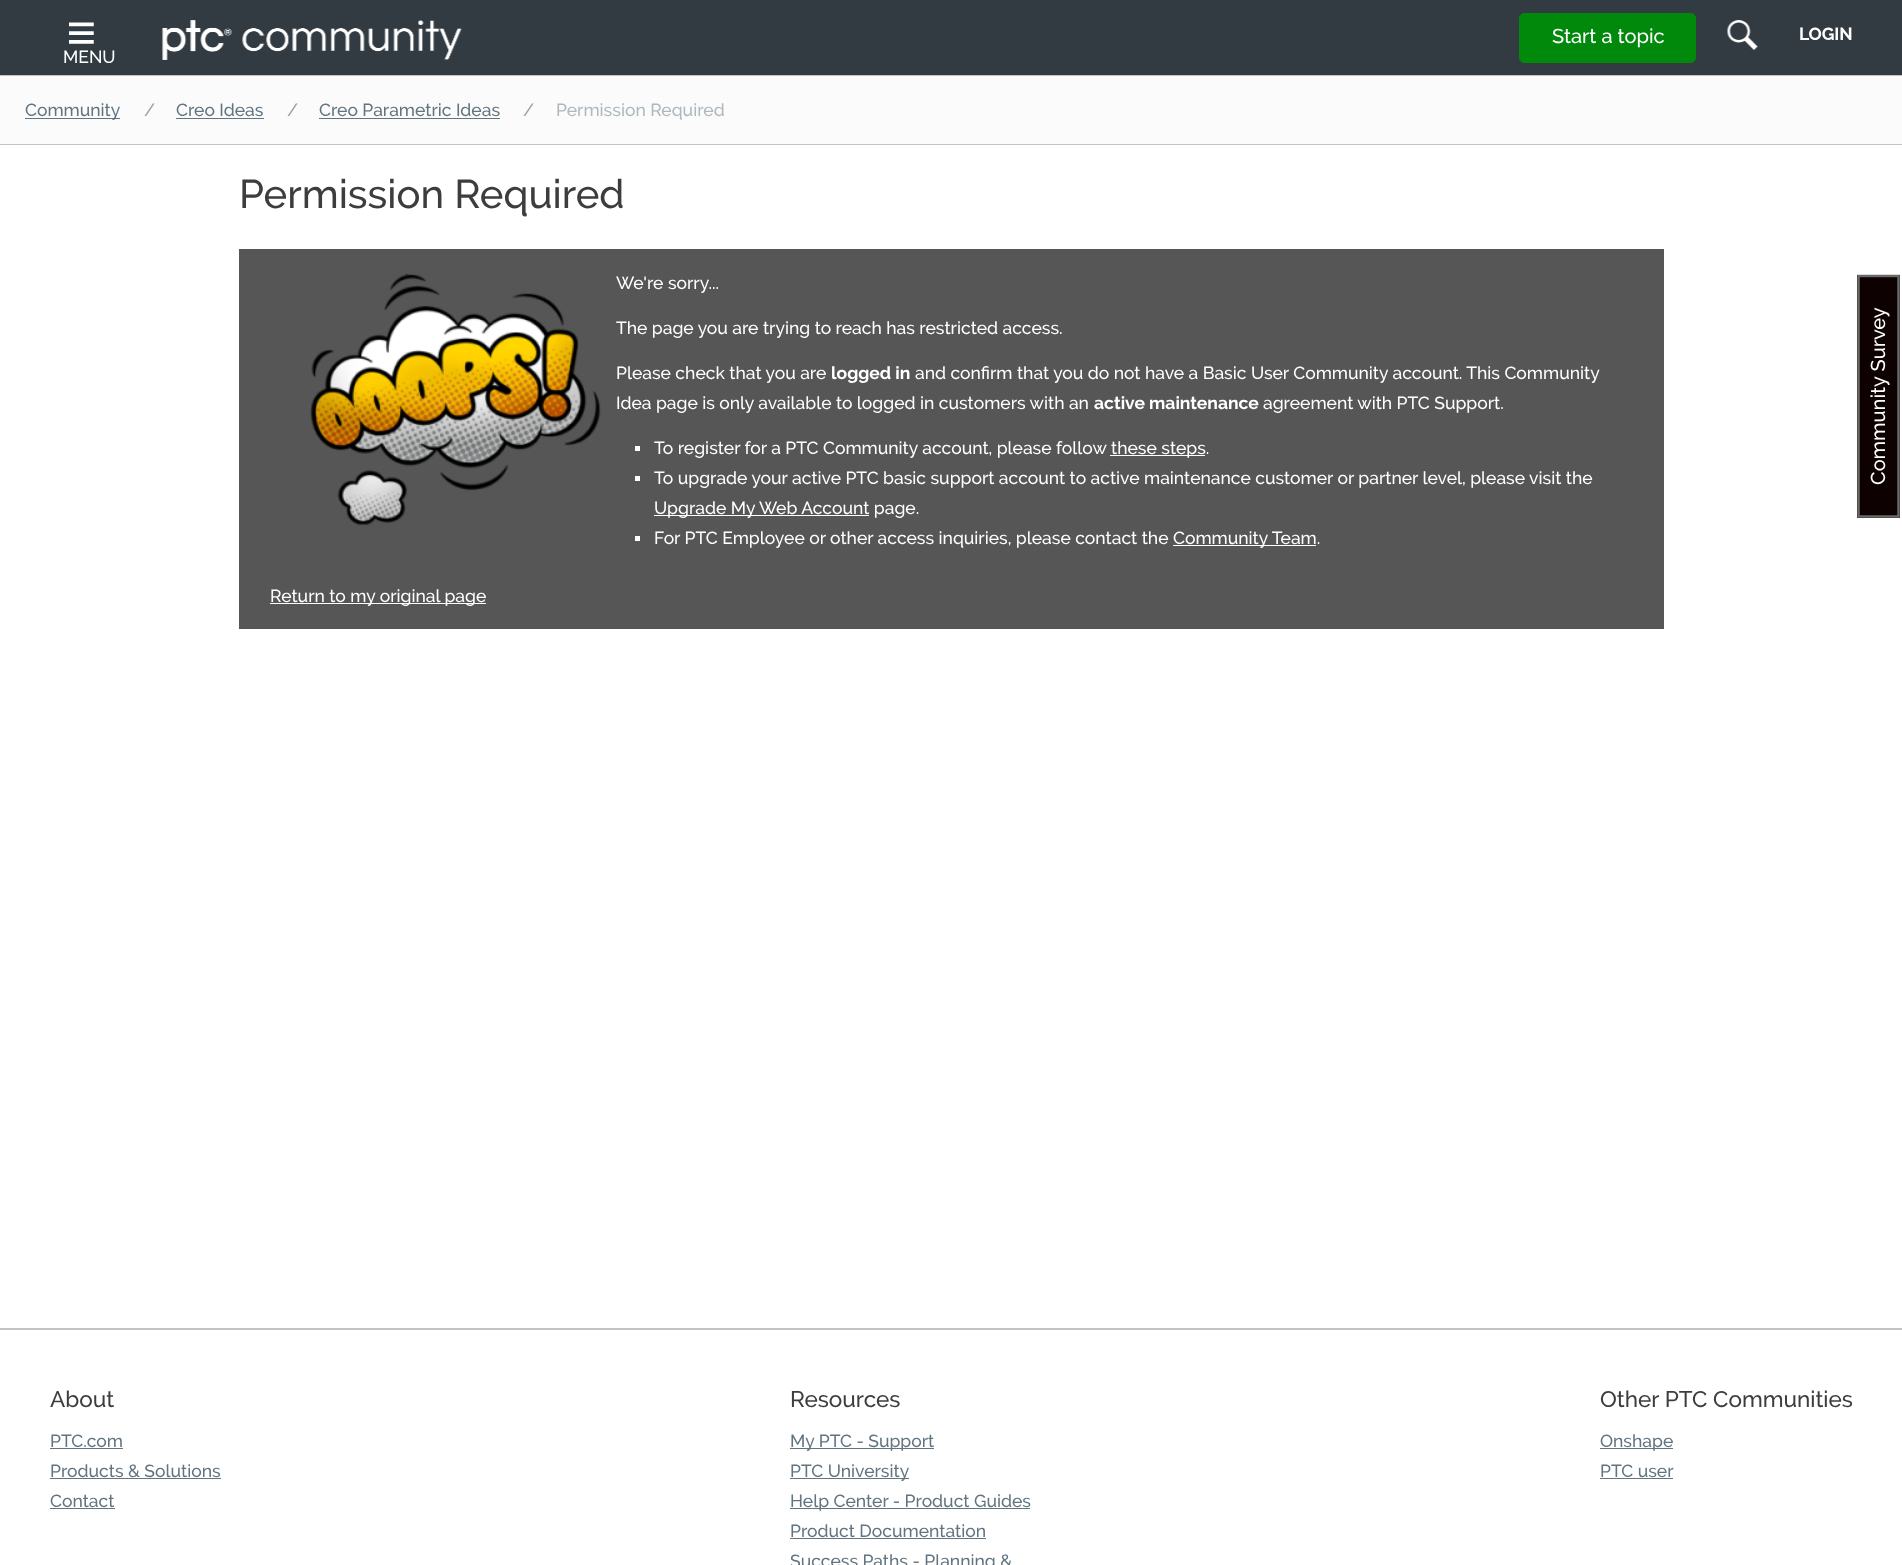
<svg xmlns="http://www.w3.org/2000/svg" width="1902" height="1565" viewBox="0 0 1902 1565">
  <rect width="100%" height="100%" fill="#ffffff"/>
  <rect x="0" y="0" width="1902" height="75" fill="#323b42"/>
  <rect x="1519.5" y="13.5" width="176" height="49" rx="4.5" fill="#00890b" stroke="#00890b"/>
  <text x="1552" y="43" font-family="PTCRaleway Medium" font-size="20" font-weight="500" fill="#ffffff">Start a topic</text>
  <image x="1727" y="20" width="31" height="30" href="img1.png"/>
  <text x="1799" y="40" font-family="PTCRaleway" font-size="17.5" font-weight="bold" fill="#ffffff">LOGIN</text>
  <image x="69" y="22" width="25" height="22" href="img2.png"/>
  <text x="63" y="63" font-family="PTCRaleway Medium" font-size="17.5" font-weight="500" fill="#ffffff">MENU</text>
  <image x="162" y="20" width="300" height="40" href="img3.png"/>
  <rect x="0" y="76" width="1902" height="68" fill="#fbfbfb"/>
  <rect x="0" y="75" width="1902" height="1" fill="#c4c4c4"/>
  <rect x="0" y="144" width="1902" height="1" fill="#c4c4c4"/>
  <rect x="25" y="118" width="95" height="1" fill="#617480"/>
  <text x="25" y="116" font-family="PTCRaleway Medium" font-size="17.5" font-weight="500" fill="#617480">Community</text>
  <text x="144" y="116" font-family="PTCRaleway Medium" font-size="17.5" font-weight="500" fill="#a1a1a1">/</text>
  <text x="176" y="116" font-family="PTCRaleway Medium" font-size="17.5" font-weight="500" fill="#617480">Creo Ideas</text>
  <rect x="176" y="118" width="88" height="1" fill="#617480"/>
  <text x="287" y="116" font-family="PTCRaleway Medium" font-size="17.5" font-weight="500" fill="#a1a1a1">/</text>
  <text x="319" y="116" font-family="PTCRaleway Medium" font-size="17.5" font-weight="500" fill="#617480">Creo Parametric Ideas</text>
  <rect x="319" y="118" width="181" height="1" fill="#617480"/>
  <text x="523" y="116" font-family="PTCRaleway Medium" font-size="17.5" font-weight="500" fill="#a1a1a1">/</text>
  <text x="556" y="116" font-family="PTCRaleway Medium" font-size="17.5" font-weight="500" fill="#aeb8bd">Permission Required</text>
  <text x="239" y="208" font-family="PTCRaleway Medium" font-size="40" font-weight="500" fill="#3d3d3d">Permission Required</text>
  <rect x="239" y="249" width="1425" height="380" fill="#565656"/>
  <image x="310" y="273" width="291" height="253" href="img4.png"/>
  <text x="616" y="289" font-family="PTCRaleway Medium" font-size="17.5" font-weight="500" fill="#ffffff">We're sorry...</text>
  <text x="616" y="334" font-family="PTCRaleway Medium" font-size="17.5" font-weight="500" fill="#ffffff">The page you are trying to reach has restricted access.</text>
  <text x="616" y="379" font-family="PTCRaleway Medium" font-size="17.5" font-weight="500" fill="#ffffff">Please check that you are</text>
  <text x="831" y="379" font-family="PTCRaleway" font-size="17.5" font-weight="bold" fill="#ffffff">logged in</text>
  <text x="915" y="379" font-family="PTCRaleway Medium" font-size="17.5" font-weight="500" fill="#ffffff">and confirm that you do not have a Basic User Community account. This Community</text>
  <text x="616" y="409" font-family="PTCRaleway Medium" font-size="17.5" font-weight="500" fill="#ffffff">Idea page is only available to logged in customers with an</text>
  <text x="1094" y="409" font-family="PTCRaleway" font-size="17.5" font-weight="bold" fill="#ffffff">active maintenance</text>
  <text x="1263" y="409" font-family="PTCRaleway Medium" font-size="17.5" font-weight="500" fill="#ffffff">agreement with PTC Support.</text>
  <rect x="635" y="446" width="5" height="5" fill="#ffffff"/>
  <text x="654" y="454" font-family="PTCRaleway Medium" font-size="17.5" font-weight="500" fill="#ffffff">To register for a PTC Community account, please follow</text>
  <rect x="1110" y="455" width="95" height="1" fill="#ffffff"/>
  <text x="1111" y="454" font-family="PTCRaleway Medium" font-size="17.5" font-weight="500" fill="#ffffff">these steps.</text>
  <rect x="635" y="476" width="5" height="5" fill="#ffffff"/>
  <text x="654" y="484" font-family="PTCRaleway Medium" font-size="17.5" font-weight="500" fill="#ffffff">To upgrade your active PTC basic support account to active maintenance customer or partner level, please visit the</text>
  <rect x="654" y="515" width="215" height="1" fill="#ffffff"/>
  <text x="654" y="514" font-family="PTCRaleway Medium" font-size="17.5" font-weight="500" fill="#ffffff">Upgrade My Web Account page.</text>
  <rect x="635" y="536" width="5" height="5" fill="#ffffff"/>
  <text x="654" y="544" font-family="PTCRaleway Medium" font-size="17.5" font-weight="500" fill="#ffffff">For PTC Employee or other access inquiries, please contact the</text>
  <rect x="1173" y="545" width="143" height="1" fill="#ffffff"/>
  <text x="1173" y="544" font-family="PTCRaleway Medium" font-size="17.5" font-weight="500" fill="#ffffff">Community Team.</text>
  <rect x="270" y="603" width="216" height="1" fill="#ffffff"/>
  <text x="270" y="602" font-family="PTCRaleway Medium" font-size="17.5" font-weight="500" fill="#ffffff">Return to my original page</text>
  <rect x="0" y="1328" width="1902" height="2" fill="#c4c4c4"/>
  <text x="50" y="1407" font-family="PTCRaleway Medium" font-size="22.5" font-weight="500" fill="#3d3d3d">About</text>
  <text x="50" y="1447" font-family="PTCRaleway Medium" font-size="17.5" font-weight="500" fill="#617480">PTC.com</text>
  <rect x="50" y="1448" width="73" height="1" fill="#617480"/>
  <text x="50" y="1477" font-family="PTCRaleway Medium" font-size="17.5" font-weight="500" fill="#617480">Products &amp; Solutions</text>
  <rect x="50" y="1478" width="171" height="1" fill="#617480"/>
  <text x="50" y="1507" font-family="PTCRaleway Medium" font-size="17.5" font-weight="500" fill="#617480">Contact</text>
  <rect x="50" y="1508" width="65" height="1" fill="#617480"/>
  <text x="790" y="1407" font-family="PTCRaleway Medium" font-size="22.5" font-weight="500" fill="#3d3d3d">Resources</text>
  <rect x="790" y="1448" width="144" height="1" fill="#617480"/>
  <text x="790" y="1447" font-family="PTCRaleway Medium" font-size="17.5" font-weight="500" fill="#617480">My PTC - Support</text>
  <rect x="790" y="1478" width="119" height="1" fill="#617480"/>
  <text x="790" y="1477" font-family="PTCRaleway Medium" font-size="17.5" font-weight="500" fill="#617480">PTC University</text>
  <rect x="790" y="1508" width="240" height="1" fill="#617480"/>
  <text x="790" y="1507" font-family="PTCRaleway Medium" font-size="17.5" font-weight="500" fill="#617480">Help Center - Product Guides</text>
  <text x="790" y="1537" font-family="PTCRaleway Medium" font-size="17.5" font-weight="500" fill="#617480">Product Documentation</text>
  <rect x="790" y="1538" width="196" height="1" fill="#617480"/>
  <text x="790" y="1567" font-family="PTCRaleway Medium" font-size="17.5" font-weight="500" fill="#617480">Success Paths - Planning &amp;</text>
  <text x="1600" y="1407" font-family="PTCRaleway Medium" font-size="22.5" font-weight="500" fill="#3d3d3d">Other PTC Communities</text>
  <rect x="1600" y="1448" width="73" height="1" fill="#617480"/>
  <text x="1600" y="1447" font-family="PTCRaleway Medium" font-size="17.5" font-weight="500" fill="#617480">Onshape</text>
  <text x="1600" y="1477" font-family="PTCRaleway Medium" font-size="17.5" font-weight="500" fill="#617480">PTC user</text>
  <rect x="1600" y="1478" width="73" height="1" fill="#617480"/>
  <rect x="1857" y="275" width="43" height="243" fill="#0e0101"/>
  <path d="M1858.5 516.5V276H1898.5V516.5Z" fill="none" stroke="#696969" stroke-width="2.5"/>
  <text x="1885" y="485" transform="rotate(-90 1885 485)" font-family="PTCRaleway Medium" font-size="20" font-weight="500" fill="#ffffff">Community Survey</text>
</svg>
